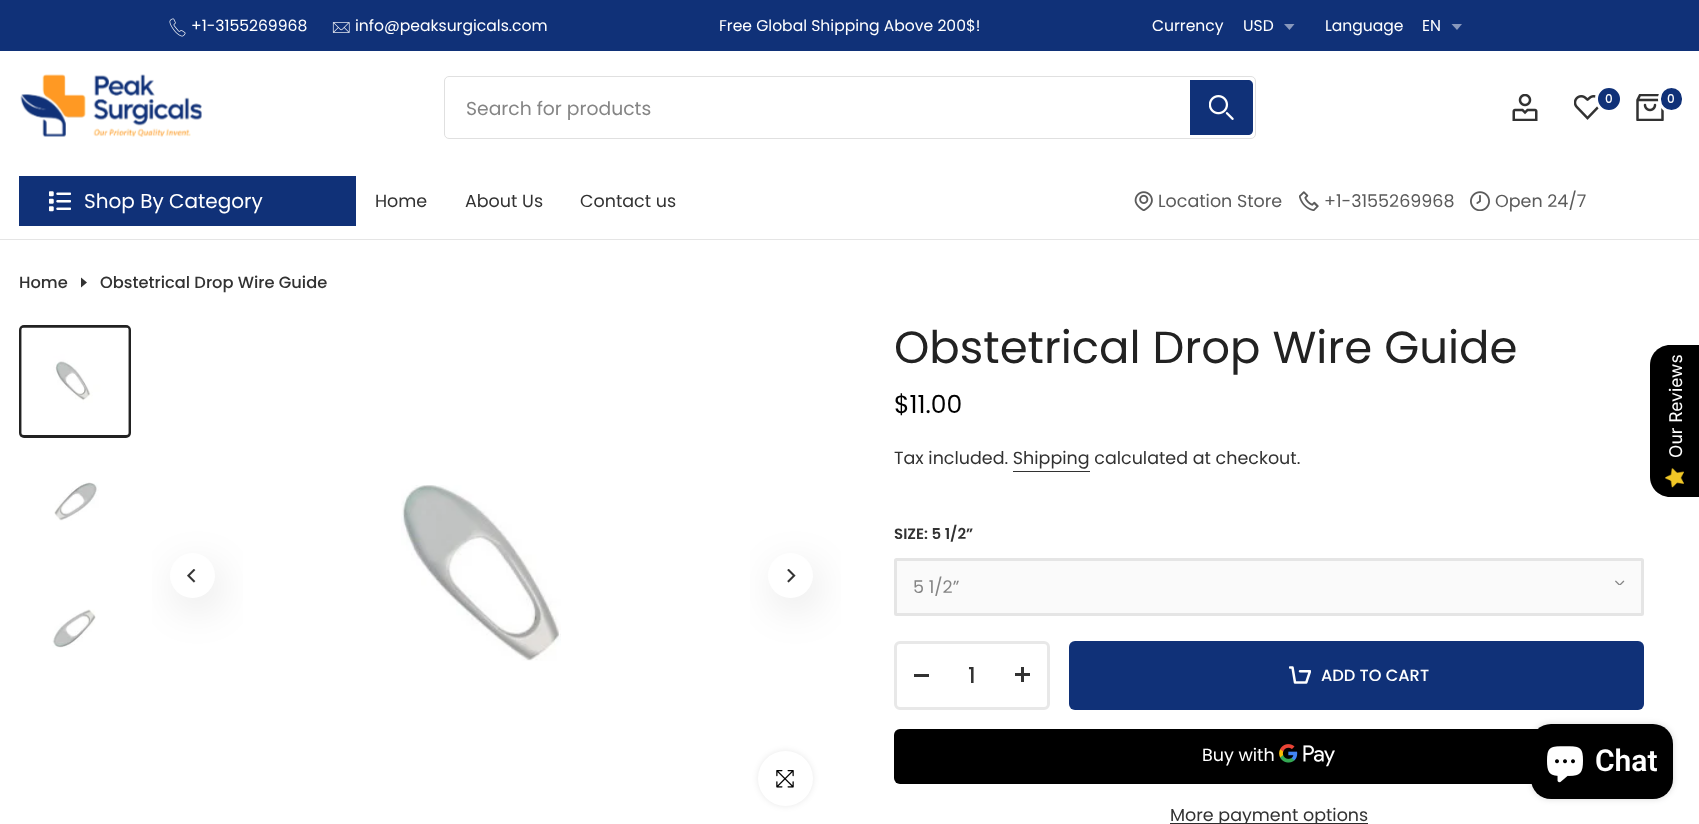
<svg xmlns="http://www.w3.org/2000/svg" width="1699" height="824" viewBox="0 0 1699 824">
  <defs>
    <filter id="blur1" x="-50%" y="-200%" width="200%" height="500%"><feGaussianBlur stdDeviation="20"/></filter>
    <filter id="blur2" x="-50%" y="-200%" width="200%" height="500%"><feGaussianBlur stdDeviation="3"/></filter>
  </defs>
  <rect width="100%" height="100%" fill="#ffffff"/>
  <rect x="0" y="0" width="1699" height="51" fill="#103178"/>
  <image x="169" y="18" width="17" height="19" href="img1.png"/>
  <text x="191" y="31" font-family="Poppins" font-size="15.6" fill="#ffffff">+1-3155269968</text>
  <image x="332" y="22" width="18" height="11" href="img2.png"/>
  <text x="355" y="31" font-family="Poppins" font-size="15.6" fill="#ffffff">info@peaksurgicals.com</text>
  <text x="719" y="31" font-family="Poppins" font-size="15.6" fill="#ffffff">Free Global Shipping Above 200$!</text>
  <text x="1152" y="31" font-family="Poppins" font-size="15.6" fill="#ffffff">Currency</text>
  <text x="1243" y="31" font-family="Poppins" font-size="15.6" fill="#ffffff">USD</text>
  <path d="M1284 24H1294.5L1289.5 30Z" fill="#8898bc"/>
  <text x="1325" y="31" font-family="Poppins" font-size="15.6" fill="#ffffff">Language</text>
  <text x="1422" y="31" font-family="Poppins" font-size="15.6" fill="#ffffff">EN</text>
  <path d="M1451.5 24H1462L1457 30Z" fill="#8898bc"/>
  <image x="20" y="74" width="182" height="63" href="img3.png"/>
  <image x="1512" y="94" width="26" height="27" href="img4.png"/>
  <image x="1574" y="95" width="25" height="25" href="img5.png"/>
  <circle cx="1609" cy="99" r="12.5" fill="#103178" stroke="#ffffff" stroke-width="3"/>
  <text x="1605" y="103" font-family="Poppins" font-size="12" font-weight="500" fill="#ffffff">0</text>
  <image x="1636" y="94" width="28" height="27" href="img6.png"/>
  <rect x="1659.5" y="86.5" width="24" height="25" rx="12" fill="#103178" stroke="#ffffff" stroke-width="3"/>
  <text x="1667" y="103" font-family="Poppins" font-size="12" font-weight="500" fill="#ffffff">0</text>
  <rect x="444.5" y="76.5" width="811" height="62" rx="4.5" fill="none" stroke="#e0e0e0"/>
  <text x="466" y="115" font-family="Poppins" font-size="18.75" fill="#858585">Search for products</text>
  <path d="M1190 80H1248C1251 80 1253 82 1253 85V130C1253 133 1251 135 1248 135H1190Z" fill="#103178"/>
  <image x="1209" y="95" width="25" height="25" href="img7.png"/>
  <rect x="19" y="176" width="337" height="50" fill="#103178"/>
  <image x="49" y="191" width="22" height="21" href="img8.png"/>
  <text x="84" y="208" font-family="Poppins" font-size="20" fill="#ffffff">Shop By Category</text>
  <text x="375" y="207" font-family="Poppins" font-size="17.5" fill="#323232">Home</text>
  <text x="465" y="207" font-family="Poppins" font-size="17.5" fill="#323232">About Us</text>
  <text x="580" y="207" font-family="Poppins" font-size="17.5" fill="#323232">Contact us</text>
  <image x="1134" y="191" width="19" height="20" href="img9.png"/>
  <text x="1158" y="207" font-family="Poppins" font-size="17.5" fill="#5b5b5b">Location Store</text>
  <image x="1299" y="191" width="20" height="20" href="img10.png"/>
  <text x="1324" y="207" font-family="Poppins" font-size="17.5" fill="#5b5b5b">+1-3155269968</text>
  <image x="1470" y="191" width="20" height="20" href="img11.png"/>
  <text x="1495" y="207" font-family="Poppins" font-size="17.5" fill="#5b5b5b">Open 24/7</text>
  <rect x="0" y="239" width="1699" height="1" fill="#e5e5e5"/>
  <text x="19" y="288" font-family="Poppins" font-size="16.25" font-weight="500" fill="#323232">Home</text>
  <path d="M81 287.5V277.5L87 282.5Z" fill="#323232"/>
  <text x="100" y="288" font-family="Poppins" font-size="16.25" font-weight="500" fill="#323232">Obstetrical Drop Wire Guide</text>
  <rect x="19" y="325" width="112" height="113" rx="5" fill="#222222"/>
  <image x="21" y="327" width="108" height="108" href="img12.png"/>
  <image x="54" y="482" width="45" height="39" href="img13.png"/>
  <image x="52" y="609" width="44" height="39" href="img14.png"/>
  <rect x="175" y="565" width="45" height="45" rx="22.5" fill="#000000" fill-opacity="0.1" filter="url(#blur1)"/>
  <circle cx="192.5" cy="575.5" r="22.5" fill="#ffffff"/>
  <image x="187" y="569" width="9" height="14" href="img15.png"/>
  <image x="401" y="485" width="160" height="176" href="img16.png"/>
  <rect x="773" y="565" width="45" height="45" rx="22.5" fill="#000000" fill-opacity="0.1" filter="url(#blur1)"/>
  <circle cx="790.5" cy="575.5" r="22.5" fill="#ffffff"/>
  <image x="787" y="569" width="9" height="14" href="img17.png"/>
  <rect x="758" y="751" width="55" height="55" rx="27.5" fill="#000000" fill-opacity="0.09" filter="url(#blur2)"/>
  <circle cx="785.5" cy="778.5" r="27.5" fill="#ffffff"/>
  <image x="776" y="770" width="18" height="18" href="img18.png"/>
  <text x="894" y="363" font-family="Poppins" font-size="45" fill="#222222">Obstetrical Drop Wire Guide</text>
  <text x="894" y="413" font-family="Poppins" font-size="25" fill="#000000">$11.00</text>
  <text x="894" y="464" font-family="Poppins" font-size="17.5" fill="#323232">Tax included. Shipping calculated at checkout.</text>
  <rect x="1013" y="471" width="77" height="1" fill="#323232"/>
  <text x="894" y="539" font-family="Poppins" font-size="15" font-weight="600" fill="#323232">SIZE: 5 1/2”</text>
  <rect x="895.5" y="559.5" width="747" height="55" rx="1" fill="#fafafa" stroke="#e5e5e5" stroke-width="3"/>
  <text x="913" y="593" font-family="Poppins" font-size="17.5" fill="#858585">5 1/2”</text>
  <image x="1615" y="580" width="10" height="5" href="img19.png"/>
  <rect x="895.5" y="642.5" width="153" height="66" rx="4.5" fill="none" stroke="#e8e8e8" stroke-width="3"/>
  <rect x="914" y="674" width="15" height="3" fill="#323232"/>
  <text x="968" y="683" font-family="Poppins" font-size="22" font-weight="500" fill="#323232">1</text>
  <rect x="1015" y="673" width="15" height="3" fill="#323232"/>
  <rect x="1021" y="667" width="3" height="15" fill="#323232"/>
  <rect x="1069" y="641" width="575" height="69" rx="6" fill="#103178"/>
  <image x="1289" y="666" width="22" height="18" href="img20.png"/>
  <text x="1321" y="681" font-family="Poppins" font-size="16.25" font-weight="500" fill="#ffffff">ADD TO CART</text>
  <rect x="894" y="729" width="750" height="55" rx="6" fill="#000000"/>
  <text x="1202" y="761" font-family="Poppins" font-size="17.5" fill="#ffffff">Buy with</text>
  <image x="1279" y="744" width="56" height="23" href="img21.png"/>
  <rect x="1170" y="823" width="198" height="1" fill="#2d2d2d"/>
  <text x="1170" y="821" font-family="Poppins" font-size="17.5" fill="#323232">More payment options</text>
  <path d="M1650 477V365C1650 354 1659 345 1670 345H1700V497H1670C1659 497 1650 488 1650 477Z" fill="#000000"/>
  <text x="1682" y="458" transform="rotate(-90 1682 458)" font-family="Inter" font-size="17.5" fill="#ffffff">Our Reviews</text>
  <image x="1665" y="468" width="19" height="20" href="img22.png"/>
  <rect x="1531" y="724" width="142" height="75" rx="20" fill="#000000" fill-opacity="0.15" filter="url(#blur2)"/>
  <rect x="1531" y="724" width="142" height="75" rx="20" fill="#000000"/>
  <image x="1547" y="746" width="36" height="37" href="img23.png"/>
  <text x="1595" y="771" font-family="Roboto" font-size="30" font-weight="600" fill="#ffffff">Chat</text>
</svg>
